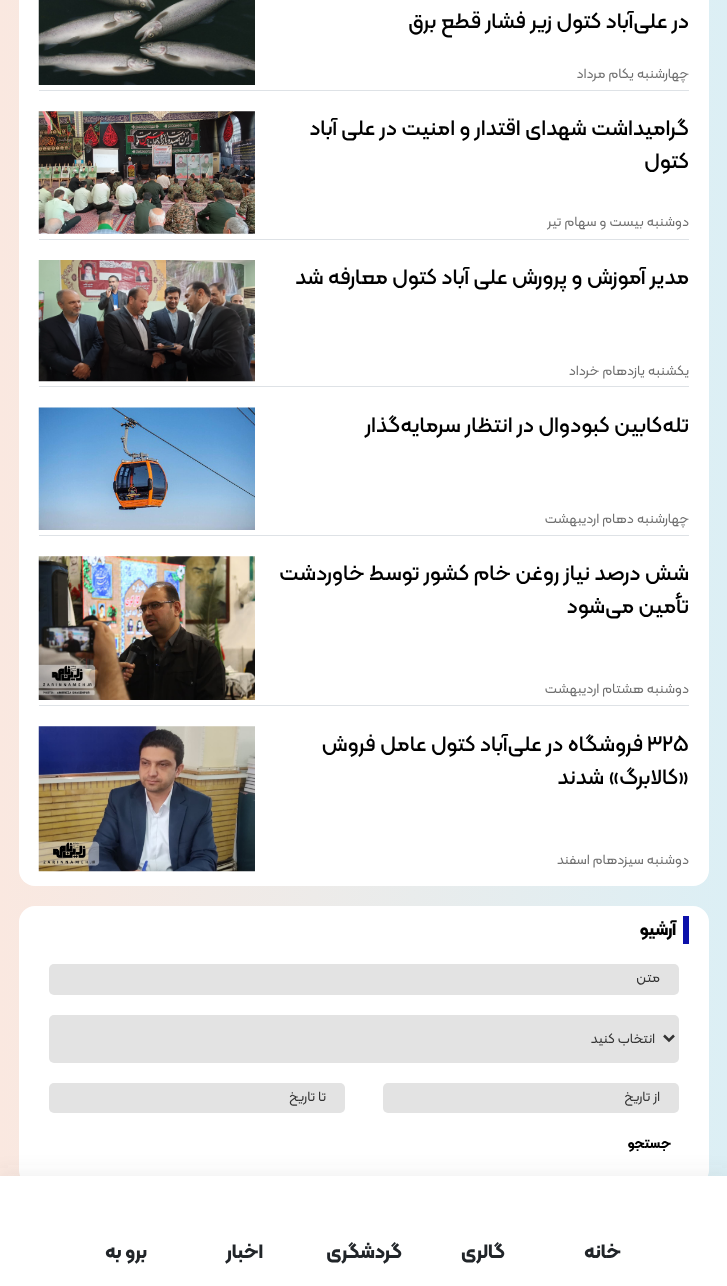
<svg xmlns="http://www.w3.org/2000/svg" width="727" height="1286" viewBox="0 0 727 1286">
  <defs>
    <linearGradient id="g1" gradientUnits="userSpaceOnUse" x1="0" y1="-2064" x2="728" y2="-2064"><stop offset="0" stop-color="#fae8e0"/><stop offset="1" stop-color="#dceff5"/></linearGradient>
    <filter id="blur1" x="-50%" y="-200%" width="200%" height="500%"><feGaussianBlur stdDeviation="9.5"/></filter>
  </defs>
  <rect width="100%" height="100%" fill="#ffffff"/>
  <rect x="0" y="0" width="727" height="1176" fill="url(#g1)"/>
  <rect x="19" y="-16" width="690" height="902" rx="16" fill="#ffffff"/>
  <rect x="39" y="90" width="650" height="1" fill="#dee2e6"/>
  <text x="689" y="28" font-family="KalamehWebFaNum" font-size="22" font-weight="500" direction="rtl" fill="#000000">در علی‌آباد کتول زیر فشار قطع برق</text>
  <text x="689" y="78" font-family="KalamehWebFaNum" font-size="14" direction="rtl" fill="#707070">چهارشنبه یکام مرداد</text>
  <image x="38" y="0" width="217" height="85" href="img1.png"/>
  <rect x="39" y="239" width="650" height="1" fill="#dee2e6"/>
  <text x="689" y="135" font-family="KalamehWebFaNum" font-size="22" font-weight="500" direction="rtl" fill="#000000">گرامیداشت شهدای اقتدار و امنیت در علی آباد</text>
  <text x="689" y="168" font-family="KalamehWebFaNum" font-size="22" font-weight="500" direction="rtl" fill="#000000">کتول</text>
  <text x="689" y="226" font-family="KalamehWebFaNum" font-size="14" direction="rtl" fill="#707070">دوشنبه بیست و سهام تیر</text>
  <image x="38" y="111" width="217" height="123" href="img2.png"/>
  <rect x="39" y="386" width="650" height="1" fill="#dee2e6"/>
  <text x="689" y="284" font-family="KalamehWebFaNum" font-size="22" font-weight="500" direction="rtl" fill="#000000">مدیر آموزش و پرورش علی آباد کتول معارفه شد</text>
  <text x="689" y="375" font-family="KalamehWebFaNum" font-size="14" direction="rtl" fill="#707070">یکشنبه یازدهام خرداد</text>
  <image x="38" y="260" width="217" height="122" href="img3.png"/>
  <rect x="39" y="535" width="650" height="1" fill="#dee2e6"/>
  <text x="689" y="432" font-family="KalamehWebFaNum" font-size="22" font-weight="500" direction="rtl" fill="#000000">تله‌کابین کبودوال در انتظار سرمایه‌گذار</text>
  <text x="689" y="523" font-family="KalamehWebFaNum" font-size="14" direction="rtl" fill="#707070">چهارشنبه دهام اردیبهشت</text>
  <image x="38" y="407" width="217" height="123" href="img4.png"/>
  <rect x="39" y="705" width="650" height="1" fill="#dee2e6"/>
  <text x="689" y="580" font-family="KalamehWebFaNum" font-size="22" font-weight="500" direction="rtl" fill="#000000">شش درصد نیاز روغن خام کشور توسط خاوردشت</text>
  <text x="689" y="613" font-family="KalamehWebFaNum" font-size="22" font-weight="500" direction="rtl" fill="#000000">تأمین می‌شود</text>
  <text x="689" y="693" font-family="KalamehWebFaNum" font-size="14" direction="rtl" fill="#707070">دوشنبه هشتام اردیبهشت</text>
  <image x="38" y="556" width="217" height="144" href="img5.png"/>
  <text x="647" y="751" font-family="KalamehWebFaNum" font-size="22" font-weight="500" fill="#000000">۳۲۵</text>
  <text x="643" y="751" font-family="KalamehWebFaNum" font-size="22" font-weight="500" direction="rtl" fill="#000000">فروشگاه در علی‌آباد کتول عامل فروش</text>
  <text x="689" y="784" font-family="KalamehWebFaNum" font-size="22" font-weight="500" direction="rtl" fill="#000000">«کالابرگ» شدند</text>
  <text x="689" y="864" font-family="KalamehWebFaNum" font-size="14" direction="rtl" fill="#707070">دوشنبه سیزدهام اسفند</text>
  <image x="38" y="726" width="217" height="146" href="img6.png"/>
  <rect x="19" y="906" width="690" height="280" rx="16" fill="#ffffff"/>
  <rect x="683" y="916" width="6" height="28" fill="#0c11aa"/>
  <text x="676" y="935" font-family="KalamehWebFaNum" font-size="18" font-weight="bold" direction="rtl" fill="#000000">آرشیو</text>
  <rect x="49" y="964" width="630" height="31" rx="5" fill="#e3e3e3"/>
  <text x="660" y="982" font-family="KalamehWebFaNum" font-size="14" direction="rtl" fill="#333333">متن</text>
  <rect x="49" y="1015" width="630" height="48" rx="5" fill="#e3e3e3"/>
  <path d="M664 1035.5L669 1040.5L674 1035.5" fill="none" stroke="#333333" stroke-width="2.5"/>
  <text x="655" y="1043" font-family="KalamehWebFaNum" font-size="14" direction="rtl" fill="#333333">انتخاب کنید</text>
  <rect x="383" y="1083" width="296" height="30" rx="5" fill="#e3e3e3"/>
  <text x="660" y="1101" font-family="KalamehWebFaNum" font-size="14" direction="rtl" fill="#333333">از تاریخ</text>
  <rect x="49" y="1083" width="296" height="30" rx="5" fill="#e3e3e3"/>
  <text x="326" y="1101" font-family="KalamehWebFaNum" font-size="14" direction="rtl" fill="#333333">تا تاریخ</text>
  <text x="671" y="1148" font-family="KalamehWebFaNum" font-size="14" font-weight="bold" direction="rtl" fill="#000000">جستجو</text>
  <rect x="-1" y="1174" width="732" height="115" fill="#626262" fill-opacity="0.1" filter="url(#blur1)"/>
  <rect x="0" y="1176" width="727" height="110" fill="#ffffff"/>
  <text x="621" y="1258" font-family="KalamehWebFaNum" font-size="20" font-weight="bold" direction="rtl" fill="#212529">خانه</text>
  <text x="505" y="1258" font-family="KalamehWebFaNum" font-size="20" font-weight="bold" direction="rtl" fill="#212529">گالری</text>
  <text x="402" y="1258" font-family="KalamehWebFaNum" font-size="20" font-weight="bold" direction="rtl" fill="#212529">گردشگری</text>
  <text x="263" y="1258" font-family="KalamehWebFaNum" font-size="20" font-weight="bold" direction="rtl" fill="#212529">اخبار</text>
  <text x="147" y="1258" font-family="KalamehWebFaNum" font-size="20" font-weight="bold" direction="rtl" fill="#212529">برو به</text>
</svg>
